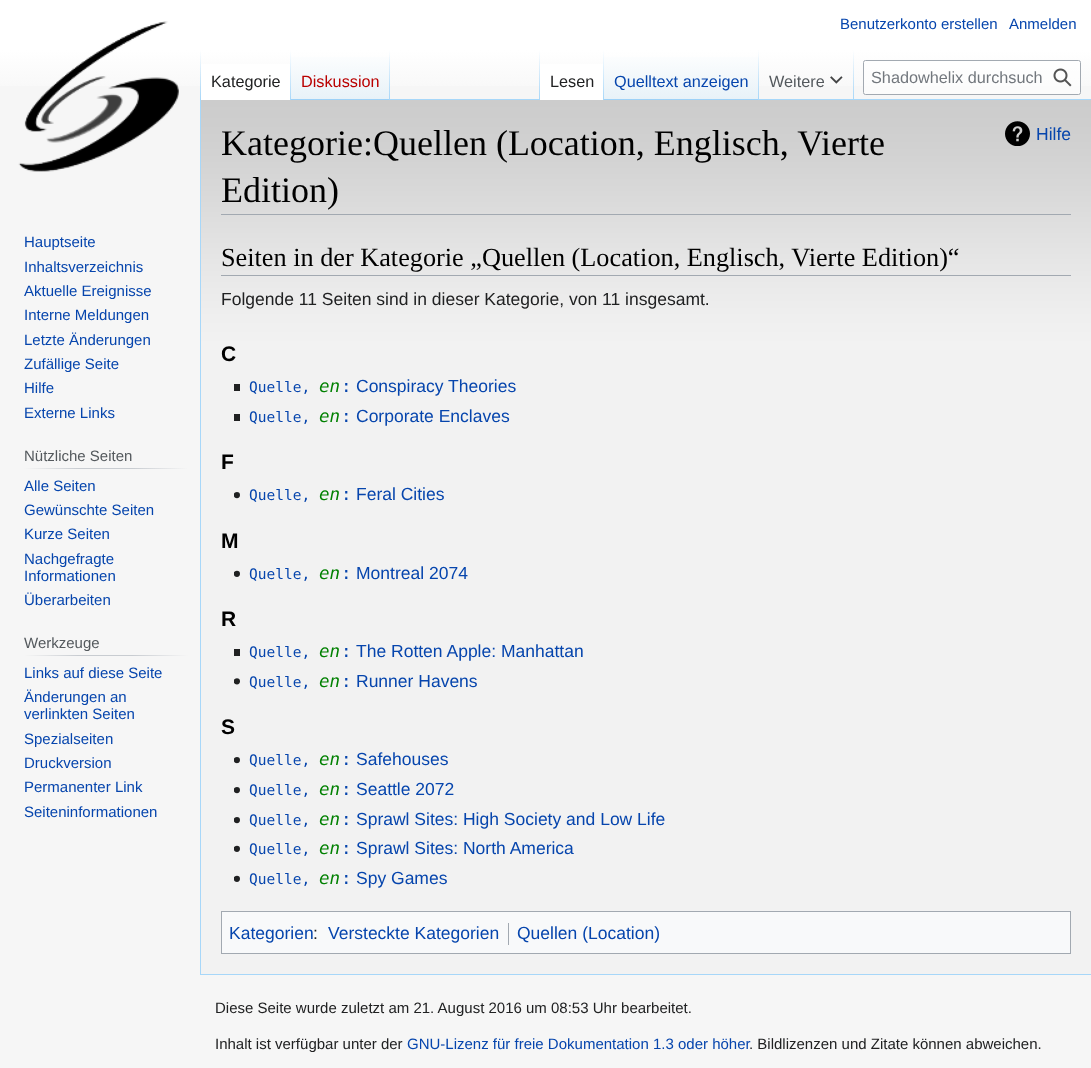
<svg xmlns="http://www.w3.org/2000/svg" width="1091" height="1068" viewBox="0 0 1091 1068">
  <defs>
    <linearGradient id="g1" gradientUnits="userSpaceOnUse" x1="546" y1="0" x2="546" y2="100"><stop offset="0.5" stop-color="#ffffff"/><stop offset="1" stop-color="#f6f6f6"/></linearGradient>
    <linearGradient id="g2" gradientUnits="userSpaceOnUse" x1="201" y1="50" x2="201" y2="100"><stop offset="0" stop-color="#a7d7f9" stop-opacity="0"/><stop offset="1" stop-color="#a7d7f9"/></linearGradient>
    <linearGradient id="g3" gradientUnits="userSpaceOnUse" x1="291" y1="50" x2="291" y2="100"><stop offset="0" stop-color="#ffffff"/><stop offset="1" stop-color="#a7d7f9"/></linearGradient>
    <linearGradient id="g4" gradientUnits="userSpaceOnUse" x1="341" y1="100" x2="341" y2="50"><stop offset="0" stop-color="#77c1f6"/><stop offset="0.03" stop-color="#e8f2f8"/><stop offset="1" stop-color="#ffffff"/></linearGradient>
    <linearGradient id="g5" gradientUnits="userSpaceOnUse" x1="389" y1="50" x2="389" y2="100"><stop offset="0" stop-color="#a7d7f9" stop-opacity="0"/><stop offset="1" stop-color="#a7d7f9"/></linearGradient>
    <linearGradient id="g6" gradientUnits="userSpaceOnUse" x1="539" y1="50" x2="539" y2="100"><stop offset="0" stop-color="#a7d7f9" stop-opacity="0"/><stop offset="1" stop-color="#a7d7f9"/></linearGradient>
    <linearGradient id="g7" gradientUnits="userSpaceOnUse" x1="603" y1="50" x2="603" y2="100"><stop offset="0" stop-color="#ffffff"/><stop offset="1" stop-color="#a7d7f9"/></linearGradient>
    <linearGradient id="g8" gradientUnits="userSpaceOnUse" x1="681" y1="100" x2="681" y2="50"><stop offset="0" stop-color="#77c1f6"/><stop offset="0.03" stop-color="#e8f2f8"/><stop offset="1" stop-color="#ffffff"/></linearGradient>
    <linearGradient id="g9" gradientUnits="userSpaceOnUse" x1="758" y1="50" x2="758" y2="100"><stop offset="0" stop-color="#a7d7f9" stop-opacity="0"/><stop offset="1" stop-color="#a7d7f9"/></linearGradient>
    <linearGradient id="g10" gradientUnits="userSpaceOnUse" x1="853" y1="50" x2="853" y2="100"><stop offset="0" stop-color="#a7d7f9" stop-opacity="0"/><stop offset="1" stop-color="#a7d7f9"/></linearGradient>
    <linearGradient id="g11" gradientUnits="userSpaceOnUse" x1="24" y1="468" x2="188" y2="468"><stop offset="0" stop-color="#f6f6f6"/><stop offset="0.33" stop-color="#c8ccd1"/><stop offset="0.66" stop-color="#c8ccd1"/><stop offset="1" stop-color="#f6f6f6"/></linearGradient>
    <linearGradient id="g12" gradientUnits="userSpaceOnUse" x1="24" y1="656" x2="188" y2="656"><stop offset="0" stop-color="#f6f6f6"/><stop offset="0.33" stop-color="#c8ccd1"/><stop offset="0.66" stop-color="#c8ccd1"/><stop offset="1" stop-color="#f6f6f6"/></linearGradient>
  </defs>
  <rect width="100%" height="100%" fill="#f6f6f6"/>
  <rect x="0" y="0" width="1091" height="86" fill="url(#g1)"/>
  <text x="840" y="29" font-family="Liberation Sans" font-size="15" fill="#0645ad">Benutzerkonto erstellen</text>
  <text x="1009" y="29" font-family="Liberation Sans" font-size="15" fill="#0645ad">Anmelden</text>
  <rect x="200" y="974" width="891" height="1" fill="#a7d7f9"/>
  <rect x="200" y="99" width="1" height="876" fill="#a7d7f9"/>
  <rect x="200" y="50" width="1" height="50" fill="url(#g2)"/>
  <rect x="201" y="64" width="89" height="36" fill="#ffffff"/>
  <rect x="290" y="50" width="1" height="50" fill="url(#g3)"/>
  <text x="211" y="87" font-family="Liberation Sans" font-size="16.25" fill="#202122">Kategorie</text>
  <rect x="291" y="57" width="99" height="43" fill="url(#g4)"/>
  <rect x="389" y="50" width="1" height="50" fill="url(#g5)"/>
  <text x="301" y="87" font-family="Liberation Sans" font-size="16.25" fill="#ba0000">Diskussion</text>
  <rect x="390" y="99" width="701" height="1" fill="#a7d7f9"/>
  <rect x="539" y="50" width="1" height="50" fill="url(#g6)"/>
  <rect x="540" y="64" width="63" height="36" fill="#ffffff"/>
  <rect x="603" y="50" width="1" height="50" fill="url(#g7)"/>
  <text x="550" y="87" font-family="Liberation Sans" font-size="16.25" fill="#202122">Lesen</text>
  <rect x="604" y="57" width="155" height="43" fill="url(#g8)"/>
  <rect x="758" y="50" width="1" height="50" fill="url(#g9)"/>
  <text x="614" y="87" font-family="Liberation Sans" font-size="16.25" fill="#0645ad">Quelltext anzeigen</text>
  <rect x="853" y="50" width="1" height="50" fill="url(#g10)"/>
  <text x="769" y="87" font-family="Liberation Sans" font-size="16.25" fill="#54595d">Weitere</text>
  <image x="830" y="76" width="13" height="8" href="img1.png"/>
  <rect x="863.5" y="60.5" width="217" height="34" rx="2" fill="#ffffff" fill-opacity="0.5" stroke="#a2a9b1"/>
  <text x="871" y="83" font-family="Liberation Sans" font-size="16.25" fill="#72777d">Shadowhelix durchsuch</text>
  <image x="1053" y="68" width="19" height="19" href="img2.png"/>
  <image x="18" y="21" width="161" height="151" href="img3.png"/>
  <text x="24" y="247" font-family="Liberation Sans" font-size="15" fill="#0645ad">Hauptseite</text>
  <text x="24" y="272" font-family="Liberation Sans" font-size="15" fill="#0645ad">Inhaltsverzeichnis</text>
  <text x="24" y="296" font-family="Liberation Sans" font-size="15" fill="#0645ad">Aktuelle Ereignisse</text>
  <text x="24" y="320" font-family="Liberation Sans" font-size="15" fill="#0645ad">Interne Meldungen</text>
  <text x="24" y="345" font-family="Liberation Sans" font-size="15" fill="#0645ad">Letzte Änderungen</text>
  <text x="24" y="369" font-family="Liberation Sans" font-size="15" fill="#0645ad">Zufällige Seite</text>
  <text x="24" y="393" font-family="Liberation Sans" font-size="15" fill="#0645ad">Hilfe</text>
  <text x="24" y="418" font-family="Liberation Sans" font-size="15" fill="#0645ad">Externe Links</text>
  <rect x="24" y="468" width="164" height="1" fill="url(#g11)"/>
  <text x="24" y="461" font-family="Liberation Sans" font-size="15" fill="#54595d">Nützliche Seiten</text>
  <text x="24" y="491" font-family="Liberation Sans" font-size="15" fill="#0645ad">Alle Seiten</text>
  <text x="24" y="515" font-family="Liberation Sans" font-size="15" fill="#0645ad">Gewünschte Seiten</text>
  <text x="24" y="539" font-family="Liberation Sans" font-size="15" fill="#0645ad">Kurze Seiten</text>
  <text x="24" y="564" font-family="Liberation Sans" font-size="15" fill="#0645ad">Nachgefragte</text>
  <text x="24" y="581" font-family="Liberation Sans" font-size="15" fill="#0645ad">Informationen</text>
  <text x="24" y="605" font-family="Liberation Sans" font-size="15" fill="#0645ad">Überarbeiten</text>
  <rect x="24" y="655" width="164" height="1" fill="url(#g12)"/>
  <text x="24" y="648" font-family="Liberation Sans" font-size="15" fill="#54595d">Werkzeuge</text>
  <text x="24" y="678" font-family="Liberation Sans" font-size="15" fill="#0645ad">Links auf diese Seite</text>
  <text x="24" y="702" font-family="Liberation Sans" font-size="15" fill="#0645ad">Änderungen an</text>
  <text x="24" y="719" font-family="Liberation Sans" font-size="15" fill="#0645ad">verlinkten Seiten</text>
  <text x="24" y="744" font-family="Liberation Sans" font-size="15" fill="#0645ad">Spezialseiten</text>
  <text x="24" y="768" font-family="Liberation Sans" font-size="15" fill="#0645ad">Druckversion</text>
  <text x="24" y="792" font-family="Liberation Sans" font-size="15" fill="#0645ad">Permanenter Link</text>
  <text x="24" y="817" font-family="Liberation Sans" font-size="15" fill="#0645ad">Seiteninformationen</text>
  <rect x="201" y="341" width="890" height="633" fill="#f2f2f2"/>
  <image x="201" y="100" width="890" height="241" href="img4.png"/>
  <rect x="221" y="214" width="850" height="1" fill="#a2a9b1"/>
  <text x="221" y="155" font-family="Liberation Serif" font-size="36" fill="#000000">Kategorie:Quellen (Location, Englisch, Vierte</text>
  <text x="221" y="202" font-family="Liberation Serif" font-size="36" fill="#000000">Edition)</text>
  <image x="1005" y="121" width="25" height="25" href="img5.png"/>
  <text x="1036" y="140" font-family="Liberation Sans" font-size="17.5" fill="#0645ad">Hilfe</text>
  <rect x="221" y="275" width="850" height="1" fill="#a2a9b1"/>
  <text x="221" y="266" font-family="Liberation Serif" font-size="26.25" fill="#000000">Seiten in der Kategorie „Quellen (Location, Englisch, Vierte Edition)“</text>
  <text x="221" y="305" font-family="Liberation Sans" font-size="17.5" fill="#202122">Folgende 11 Seiten sind in dieser Kategorie, von 11 insgesamt.</text>
  <text x="221" y="361" font-family="Liberation Sans" font-size="21" font-weight="bold" fill="#000000">C</text>
  <rect x="234" y="384" width="6" height="7" fill="#202122"/>
  <text x="249" y="392" font-family="DejaVu Sans Mono" font-size="14.5" fill="#0645ad">Quelle,</text>
  <text x="319" y="392" font-family="DejaVu Sans Mono" font-size="17.5" font-style="italic" fill="#008000">en</text>
  <text x="341" y="392" font-family="DejaVu Sans Mono" font-size="17.5" fill="#0645ad">:</text>
  <text x="356" y="392" font-family="Liberation Sans" font-size="17.5" fill="#0645ad">Conspiracy Theories</text>
  <rect x="234" y="414" width="6" height="7" fill="#202122"/>
  <text x="249" y="422" font-family="DejaVu Sans Mono" font-size="14.5" fill="#0645ad">Quelle,</text>
  <text x="319" y="422" font-family="DejaVu Sans Mono" font-size="17.5" font-style="italic" fill="#008000">en</text>
  <text x="341" y="422" font-family="DejaVu Sans Mono" font-size="17.5" fill="#0645ad">:</text>
  <text x="356" y="422" font-family="Liberation Sans" font-size="17.5" fill="#0645ad">Corporate Enclaves</text>
  <text x="221" y="469" font-family="Liberation Sans" font-size="21" font-weight="bold" fill="#000000">F</text>
  <image x="234" y="492" width="6" height="7" href="img6.png"/>
  <text x="249" y="500" font-family="DejaVu Sans Mono" font-size="14.5" fill="#0645ad">Quelle,</text>
  <text x="319" y="500" font-family="DejaVu Sans Mono" font-size="17.5" font-style="italic" fill="#008000">en</text>
  <text x="341" y="500" font-family="DejaVu Sans Mono" font-size="17.5" fill="#0645ad">:</text>
  <text x="356" y="500" font-family="Liberation Sans" font-size="17.5" fill="#0645ad">Feral Cities</text>
  <text x="221" y="548" font-family="Liberation Sans" font-size="21" font-weight="bold" fill="#000000">M</text>
  <image x="234" y="570" width="6" height="7" href="img7.png"/>
  <text x="249" y="579" font-family="DejaVu Sans Mono" font-size="14.5" fill="#0645ad">Quelle,</text>
  <text x="319" y="579" font-family="DejaVu Sans Mono" font-size="17.5" font-style="italic" fill="#008000">en</text>
  <text x="341" y="579" font-family="DejaVu Sans Mono" font-size="17.5" fill="#0645ad">:</text>
  <text x="356" y="579" font-family="Liberation Sans" font-size="17.5" fill="#0645ad">Montreal 2074</text>
  <text x="221" y="626" font-family="Liberation Sans" font-size="21" font-weight="bold" fill="#000000">R</text>
  <rect x="234" y="649" width="6" height="7" fill="#202122"/>
  <text x="249" y="657" font-family="DejaVu Sans Mono" font-size="14.5" fill="#0645ad">Quelle,</text>
  <text x="319" y="657" font-family="DejaVu Sans Mono" font-size="17.5" font-style="italic" fill="#008000">en</text>
  <text x="341" y="657" font-family="DejaVu Sans Mono" font-size="17.5" fill="#0645ad">:</text>
  <text x="356" y="657" font-family="Liberation Sans" font-size="17.5" fill="#0645ad">The Rotten Apple: Manhattan</text>
  <image x="234" y="678" width="6" height="7" href="img8.png"/>
  <text x="249" y="687" font-family="DejaVu Sans Mono" font-size="14.5" fill="#0645ad">Quelle,</text>
  <text x="319" y="687" font-family="DejaVu Sans Mono" font-size="17.5" font-style="italic" fill="#008000">en</text>
  <text x="341" y="687" font-family="DejaVu Sans Mono" font-size="17.5" fill="#0645ad">:</text>
  <text x="356" y="687" font-family="Liberation Sans" font-size="17.5" fill="#0645ad">Runner Havens</text>
  <text x="221" y="734" font-family="Liberation Sans" font-size="21" font-weight="bold" fill="#000000">S</text>
  <image x="234" y="757" width="6" height="7" href="img9.png"/>
  <text x="249" y="765" font-family="DejaVu Sans Mono" font-size="14.5" fill="#0645ad">Quelle,</text>
  <text x="319" y="765" font-family="DejaVu Sans Mono" font-size="17.5" font-style="italic" fill="#008000">en</text>
  <text x="341" y="765" font-family="DejaVu Sans Mono" font-size="17.5" fill="#0645ad">:</text>
  <text x="356" y="765" font-family="Liberation Sans" font-size="17.5" fill="#0645ad">Safehouses</text>
  <image x="234" y="787" width="6" height="7" href="img6.png"/>
  <text x="249" y="795" font-family="DejaVu Sans Mono" font-size="14.5" fill="#0645ad">Quelle,</text>
  <text x="319" y="795" font-family="DejaVu Sans Mono" font-size="17.5" font-style="italic" fill="#008000">en</text>
  <text x="341" y="795" font-family="DejaVu Sans Mono" font-size="17.5" fill="#0645ad">:</text>
  <text x="356" y="795" font-family="Liberation Sans" font-size="17.5" fill="#0645ad">Seattle 2072</text>
  <image x="234" y="817" width="6" height="7" href="img6.png"/>
  <text x="249" y="825" font-family="DejaVu Sans Mono" font-size="14.5" fill="#0645ad">Quelle,</text>
  <text x="319" y="825" font-family="DejaVu Sans Mono" font-size="17.5" font-style="italic" fill="#008000">en</text>
  <text x="341" y="825" font-family="DejaVu Sans Mono" font-size="17.5" fill="#0645ad">:</text>
  <text x="356" y="825" font-family="Liberation Sans" font-size="17.5" fill="#0645ad">Sprawl Sites: High Society and Low Life</text>
  <image x="234" y="845" width="6" height="7" href="img7.png"/>
  <text x="249" y="854" font-family="DejaVu Sans Mono" font-size="14.5" fill="#0645ad">Quelle,</text>
  <text x="319" y="854" font-family="DejaVu Sans Mono" font-size="17.5" font-style="italic" fill="#008000">en</text>
  <text x="341" y="854" font-family="DejaVu Sans Mono" font-size="17.5" fill="#0645ad">:</text>
  <text x="356" y="854" font-family="Liberation Sans" font-size="17.5" fill="#0645ad">Sprawl Sites: North America</text>
  <image x="234" y="875" width="6" height="7" href="img7.png"/>
  <text x="249" y="884" font-family="DejaVu Sans Mono" font-size="14.5" fill="#0645ad">Quelle,</text>
  <text x="319" y="884" font-family="DejaVu Sans Mono" font-size="17.5" font-style="italic" fill="#008000">en</text>
  <text x="341" y="884" font-family="DejaVu Sans Mono" font-size="17.5" fill="#0645ad">:</text>
  <text x="356" y="884" font-family="Liberation Sans" font-size="17.5" fill="#0645ad">Spy Games</text>
  <rect x="221.5" y="911.5" width="849" height="42" fill="#f8f9fa" stroke="#a2a9b1"/>
  <text x="229" y="939" font-family="Liberation Sans" font-size="17.5" fill="#0645ad">Kategorien</text>
  <text x="313" y="939" font-family="Liberation Sans" font-size="17.5" fill="#202122">:</text>
  <text x="328" y="939" font-family="Liberation Sans" font-size="17.5" fill="#0645ad">Versteckte Kategorien</text>
  <rect x="508" y="923" width="1" height="22" fill="#a2a9b1"/>
  <text x="517" y="939" font-family="Liberation Sans" font-size="17.5" fill="#0645ad">Quellen (Location)</text>
  <text x="215" y="1013" font-family="Liberation Sans" font-size="15" fill="#202122">Diese Seite wurde zuletzt am 21. August 2016 um 08:53 Uhr bearbeitet.</text>
  <text x="215" y="1049" font-family="Liberation Sans" font-size="15" fill="#202122">Inhalt ist verfügbar unter der</text>
  <text x="407" y="1049" font-family="Liberation Sans" font-size="15" fill="#0645ad">GNU-Lizenz für freie Dokumentation 1.3 oder höher</text>
  <text x="749" y="1049" font-family="Liberation Sans" font-size="15" fill="#202122">. Bildlizenzen und Zitate können abweichen.</text>
</svg>
